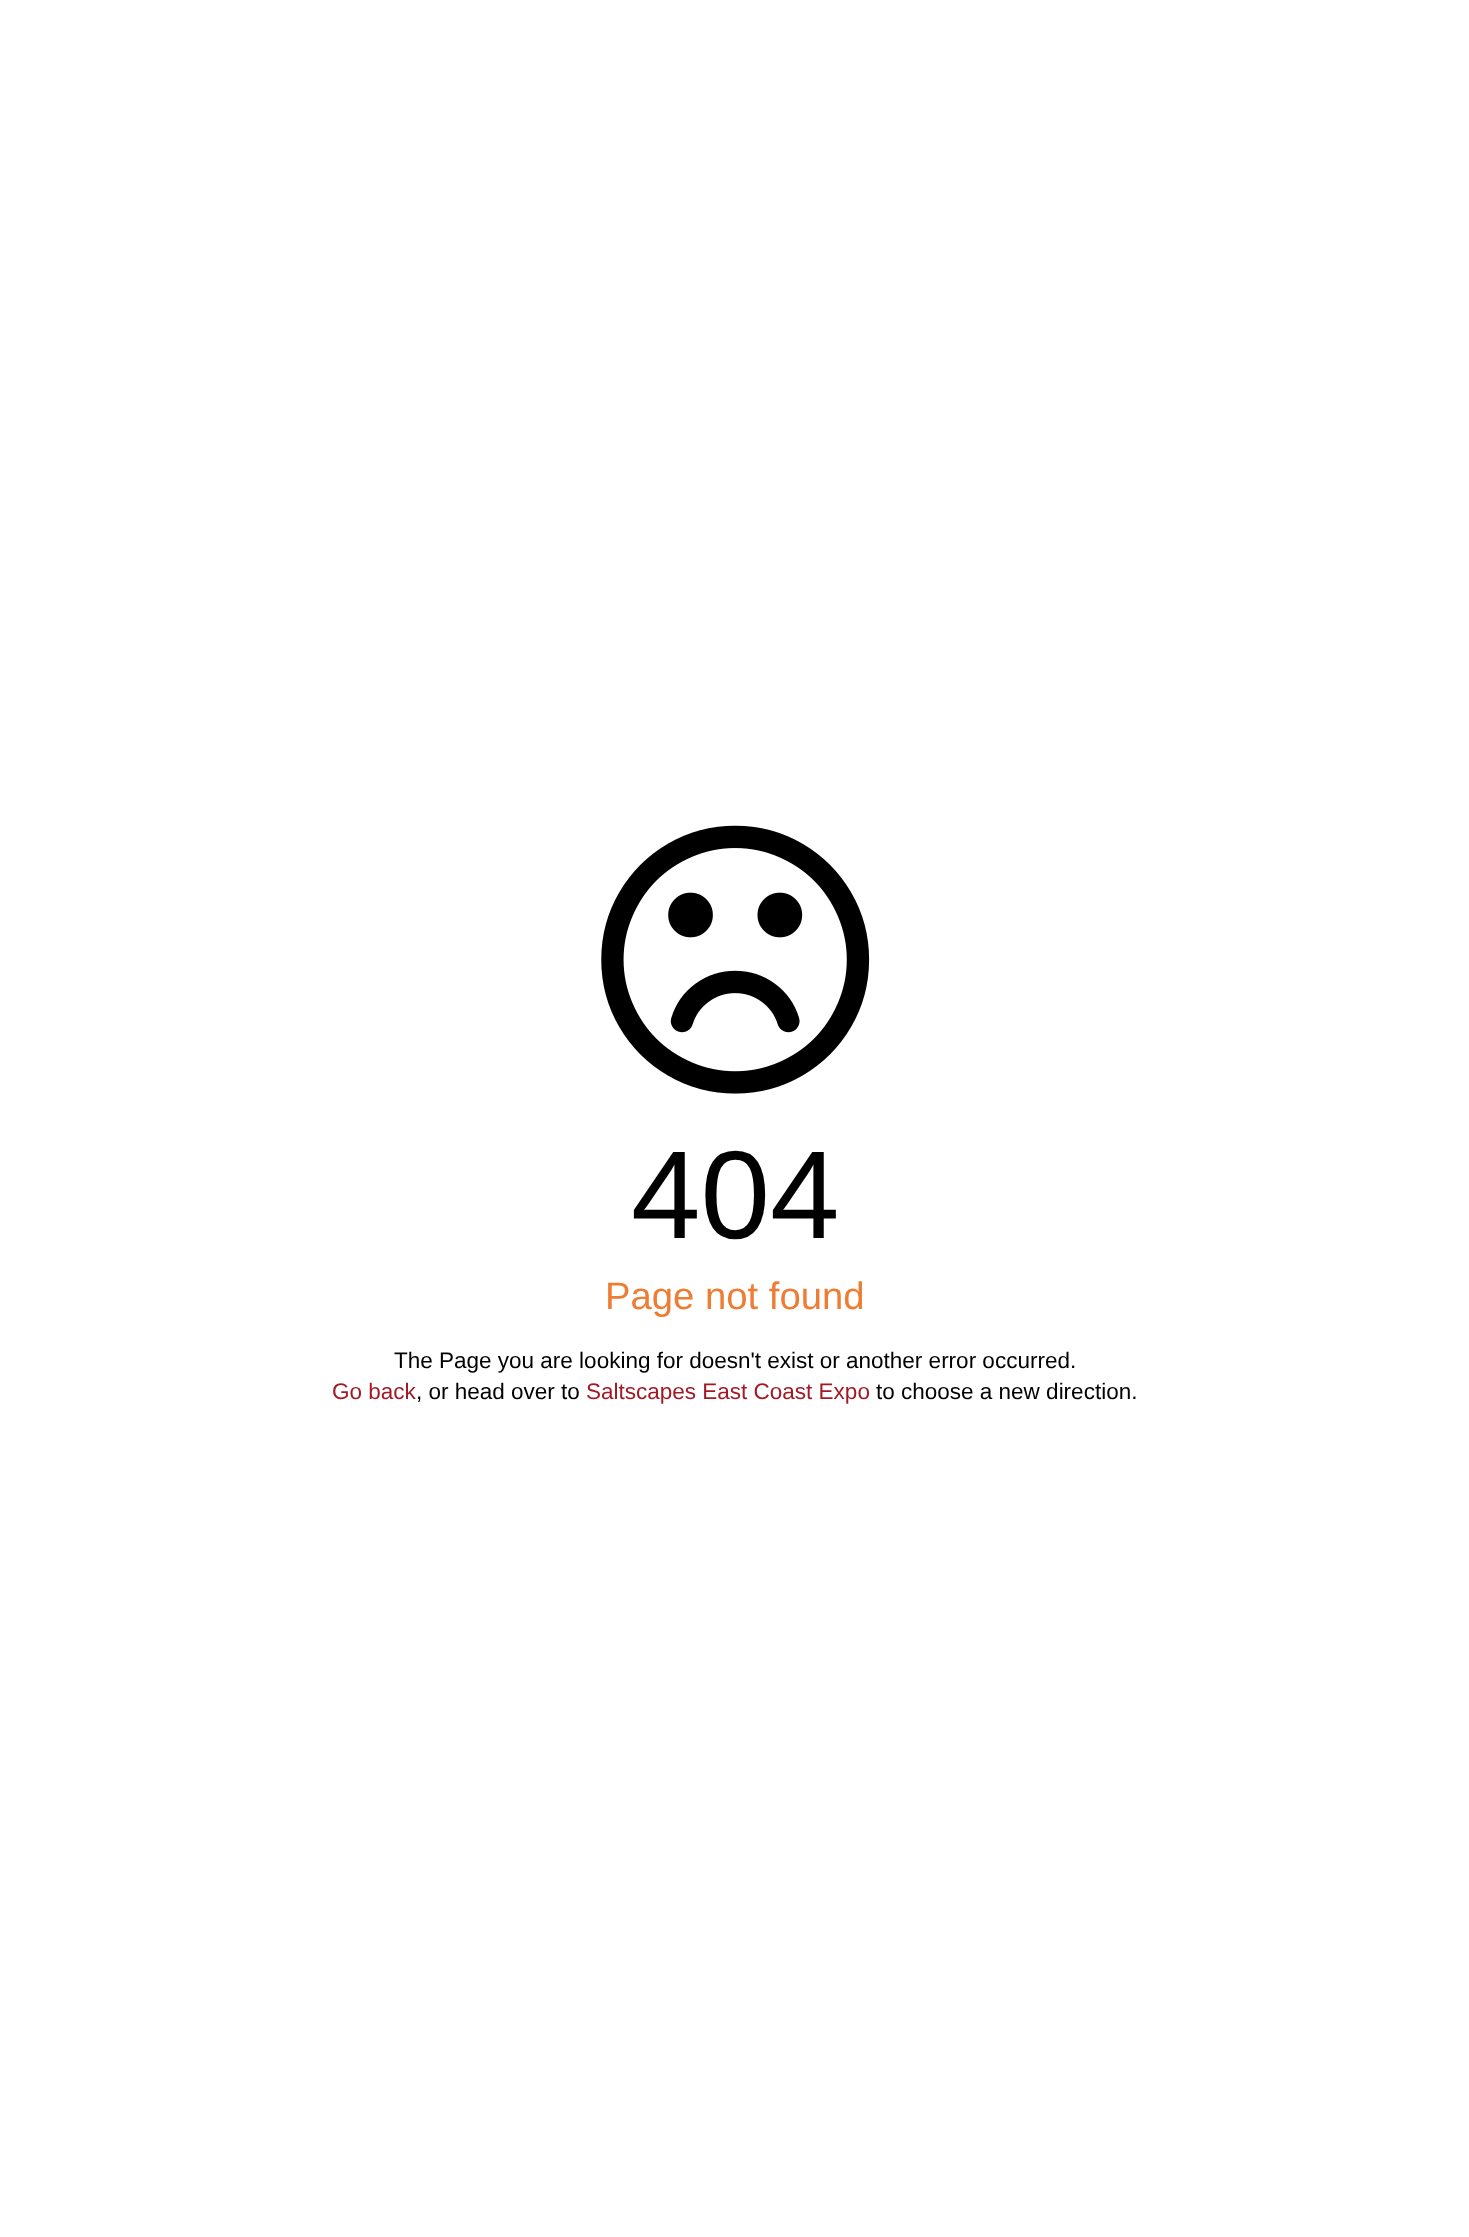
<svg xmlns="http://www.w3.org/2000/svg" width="1469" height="2237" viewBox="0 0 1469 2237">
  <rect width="100%" height="100%" fill="#ffffff"/>
  <image x="601" y="825" width="269" height="269" href="img1.png"/>
  <text x="631" y="1238" font-family="Liberation Sans" font-size="125" fill="#000000">404</text>
  <text x="605" y="1309" font-family="Liberation Sans" font-size="38.25" fill="#ed7d35">Page not found</text>
  <text x="394" y="1368" font-family="Liberation Sans" font-size="22.5" fill="#000000">The Page you are looking for doesn't exist or another error occurred.</text>
  <text x="332" y="1399" font-family="Liberation Sans" font-size="22.5" fill="#a11b27">Go back</text>
  <text x="416" y="1399" font-family="Liberation Sans" font-size="22.5" fill="#000000">, or head over to</text>
  <text x="586" y="1399" font-family="Liberation Sans" font-size="22.5" fill="#a11b27">Saltscapes East Coast Expo</text>
  <text x="876" y="1399" font-family="Liberation Sans" font-size="22.5" fill="#000000">to choose a new direction.</text>
</svg>
